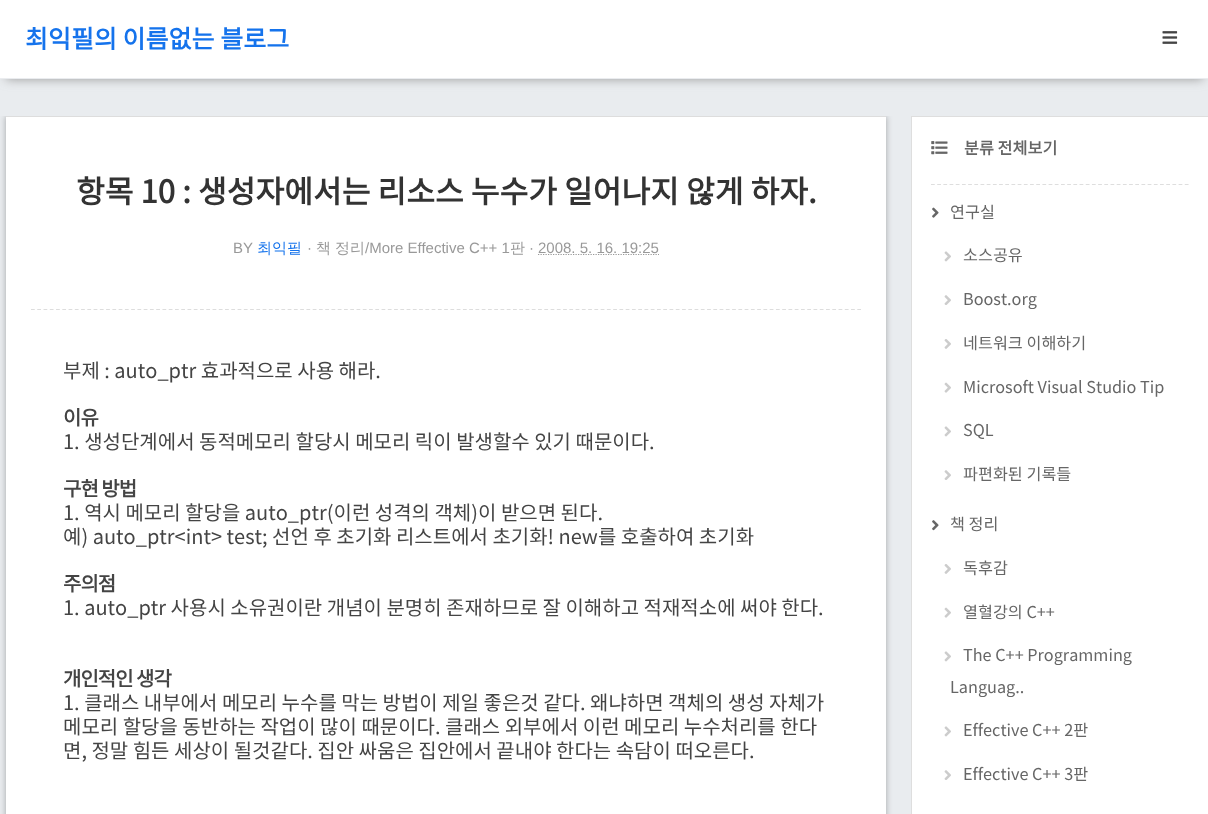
<svg xmlns="http://www.w3.org/2000/svg" width="1208" height="814" viewBox="0 0 1208 814">
  <defs>
    <filter id="blur1" x="-50%" y="-200%" width="200%" height="500%"><feGaussianBlur stdDeviation="5.5"/></filter>
    <clipPath id="clip1"><rect x="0" y="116" width="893" height="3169"/></clipPath>
    <filter id="blur2" x="-50%" y="-200%" width="200%" height="500%"><feGaussianBlur stdDeviation="3"/></filter>
  </defs>
  <rect width="100%" height="100%" fill="#e9ecef"/>
  <rect x="6" y="13" width="1197" height="66" fill="#999999" filter="url(#blur1)"/>
  <rect x="0" y="0" width="1208" height="78" fill="#ffffff"/>
  <rect x="0" y="78" width="1208" height="1" fill="#eaecef"/>
  <text x="25" y="48" font-family="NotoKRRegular" font-size="25" font-weight="bold" fill="#1573ec">최익필의 이름없는 블로그</text>
  <image x="1162" y="31" width="16" height="13" href="img1.png"/>
  <g clip-path="url(#clip1)">
    <rect x="6" y="116" width="880" height="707" fill="#000000" fill-opacity="0.3" filter="url(#blur2)"/>
  </g>
  <rect x="6" y="117" width="880" height="697" fill="#ffffff"/>
  <rect x="6" y="116" width="880" height="1" fill="#dddddd"/>
  <path d="M31 309.5H861" fill="none" stroke="#dddddd" stroke-width="1.2" stroke-dasharray="3.75 2.51"/>
  <text x="76" y="203" font-family="NotoKRRegular" font-size="31.25" font-weight="bold" fill="#333333">항목 10 : 생성자에서는 리소스 누수가 일어나지 않게 하자.</text>
  <text x="233" y="253" font-family="Liberation Sans" font-size="15" fill="#999999">BY</text>
  <text x="257" y="253" font-family="WenQuanYi Zen Hei" font-size="15" font-weight="500" fill="#1573ec">최익필</text>
  <text x="307" y="253" font-family="Liberation Sans" font-size="15" fill="#999999">·</text>
  <text x="316" y="253" font-family="WenQuanYi Zen Hei" font-size="15" font-weight="500" fill="#999999">책</text>
  <text x="335" y="253" font-family="WenQuanYi Zen Hei" font-size="15" font-weight="500" fill="#999999">정리</text>
  <text x="365" y="253" font-family="Liberation Sans" font-size="15" fill="#999999">/More Effective C++ 1</text>
  <text x="510" y="253" font-family="WenQuanYi Zen Hei" font-size="15" font-weight="500" fill="#999999">판</text>
  <text x="529" y="253" font-family="Liberation Sans" font-size="15" fill="#999999">·</text>
  <path d="M538 254.5H659" fill="none" stroke="#999999" stroke-width="1.2" stroke-dasharray="1.25 1.25"/>
  <text x="538" y="253" font-family="Liberation Sans" font-size="15" fill="#999999">2008. 5. 16. 19:25</text>
  <text x="63" y="378" font-family="NotoKRRegular" font-size="20" fill="#444444">부제 : auto_ptr 효과적으로 사용 해라.</text>
  <text x="63" y="425" font-family="NotoKRRegular" font-size="20" font-weight="bold" letter-spacing="-1" fill="#444444">이유</text>
  <text x="63" y="449" font-family="NotoKRRegular" font-size="20" fill="#444444">1. 생성단계에서 동적메모리 할당시 메모리 릭이 발생할수 있기 때문이다.</text>
  <text x="63" y="496" font-family="NotoKRRegular" font-size="20" font-weight="bold" letter-spacing="-1" fill="#444444">구현 방법</text>
  <text x="63" y="520" font-family="NotoKRRegular" font-size="20" fill="#444444">1. 역시 메모리 할당을 auto_ptr(이런 성격의 객체)이 받으면 된다.</text>
  <text x="63" y="544" font-family="NotoKRRegular" font-size="20" fill="#444444">예) auto_ptr&lt;int&gt; test; 선언 후 초기화 리스트에서 초기화! new를 호출하여 초기화</text>
  <text x="63" y="591" font-family="NotoKRRegular" font-size="20" font-weight="bold" letter-spacing="-1" fill="#444444">주의점</text>
  <text x="63" y="615" font-family="NotoKRRegular" font-size="20" fill="#444444">1. auto_ptr 사용시 소유권이란 개념이 분명히 존재하므로 잘 이해하고 적재적소에 써야 한다.</text>
  <text x="63" y="686" font-family="NotoKRRegular" font-size="20" font-weight="bold" letter-spacing="-1" fill="#444444">개인적인 생각</text>
  <text x="63" y="710" font-family="NotoKRRegular" font-size="20" fill="#444444">1. 클래스 내부에서 메모리 누수를 막는 방법이 제일 좋은것 같다. 왜냐하면 객체의 생성 자체가</text>
  <text x="63" y="734" font-family="NotoKRRegular" font-size="20" fill="#444444">메모리 할당을 동반하는 작업이 많이 때문이다. 클래스 외부에서 이런 메모리 누수처리를 한다</text>
  <text x="63" y="758" font-family="NotoKRRegular" font-size="20" fill="#444444">면, 정말 힘든 세상이 될것같다. 집안 싸움은 집안에서 끝내야 한다는 속담이 떠오른다.</text>
  <rect x="911.5" y="116.5" width="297" height="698" fill="#ffffff" stroke="#dedede"/>
  <path d="M931 184.5H1189" fill="none" stroke="#dedede" stroke-width="1.2" stroke-dasharray="3.75 2.44"/>
  <image x="931" y="141" width="17" height="14" href="img2.png"/>
  <text x="964" y="154" font-family="NotoKRRegular" font-size="16.25" font-weight="bold" fill="#666666">분류 전체보기</text>
  <image x="932" y="207" width="7" height="11" href="img3.png"/>
  <text x="950" y="218" font-family="NotoKRRegular" font-size="16.25" fill="#666666">연구실</text>
  <image x="944" y="251" width="7" height="11" href="img4.png"/>
  <text x="963" y="261" font-family="NotoKRRegular" font-size="16.25" fill="#666666">소스공유</text>
  <image x="944" y="295" width="7" height="10" href="img5.png"/>
  <text x="963" y="305" font-family="NotoKRRegular" font-size="16.25" fill="#666666">Boost.org</text>
  <image x="944" y="339" width="7" height="10" href="img6.png"/>
  <text x="963" y="349" font-family="NotoKRRegular" font-size="16.25" fill="#666666">네트워크 이해하기</text>
  <image x="944" y="382" width="7" height="11" href="img7.png"/>
  <text x="963" y="393" font-family="NotoKRRegular" font-size="16.25" fill="#666666">Microsoft Visual Studio Tip</text>
  <image x="944" y="426" width="7" height="11" href="img4.png"/>
  <text x="963" y="436" font-family="NotoKRRegular" font-size="16.25" fill="#666666">SQL</text>
  <image x="944" y="470" width="7" height="10" href="img5.png"/>
  <text x="963" y="480" font-family="NotoKRRegular" font-size="16.25" fill="#666666">파편화된 기록들</text>
  <image x="932" y="520" width="7" height="11" href="img8.png"/>
  <text x="950" y="530" font-family="NotoKRRegular" font-size="16.25" fill="#666666">책 정리</text>
  <image x="944" y="564" width="7" height="10" href="img6.png"/>
  <text x="963" y="574" font-family="NotoKRRegular" font-size="16.25" fill="#666666">독후감</text>
  <image x="944" y="607" width="7" height="11" href="img7.png"/>
  <text x="963" y="618" font-family="NotoKRRegular" font-size="16.25" fill="#666666">열혈강의 C++</text>
  <image x="944" y="651" width="7" height="11" href="img4.png"/>
  <text x="963" y="661" font-family="NotoKRRegular" font-size="16.25" fill="#666666">The C++ Programming</text>
  <text x="950" y="693" font-family="NotoKRRegular" font-size="16.25" fill="#666666">Languag..</text>
  <image x="944" y="726" width="7" height="11" href="img4.png"/>
  <text x="963" y="736" font-family="NotoKRRegular" font-size="16.25" fill="#666666">Effective C++ 2판</text>
  <image x="944" y="770" width="7" height="10" href="img5.png"/>
  <text x="963" y="780" font-family="NotoKRRegular" font-size="16.25" fill="#666666">Effective C++ 3판</text>
</svg>
